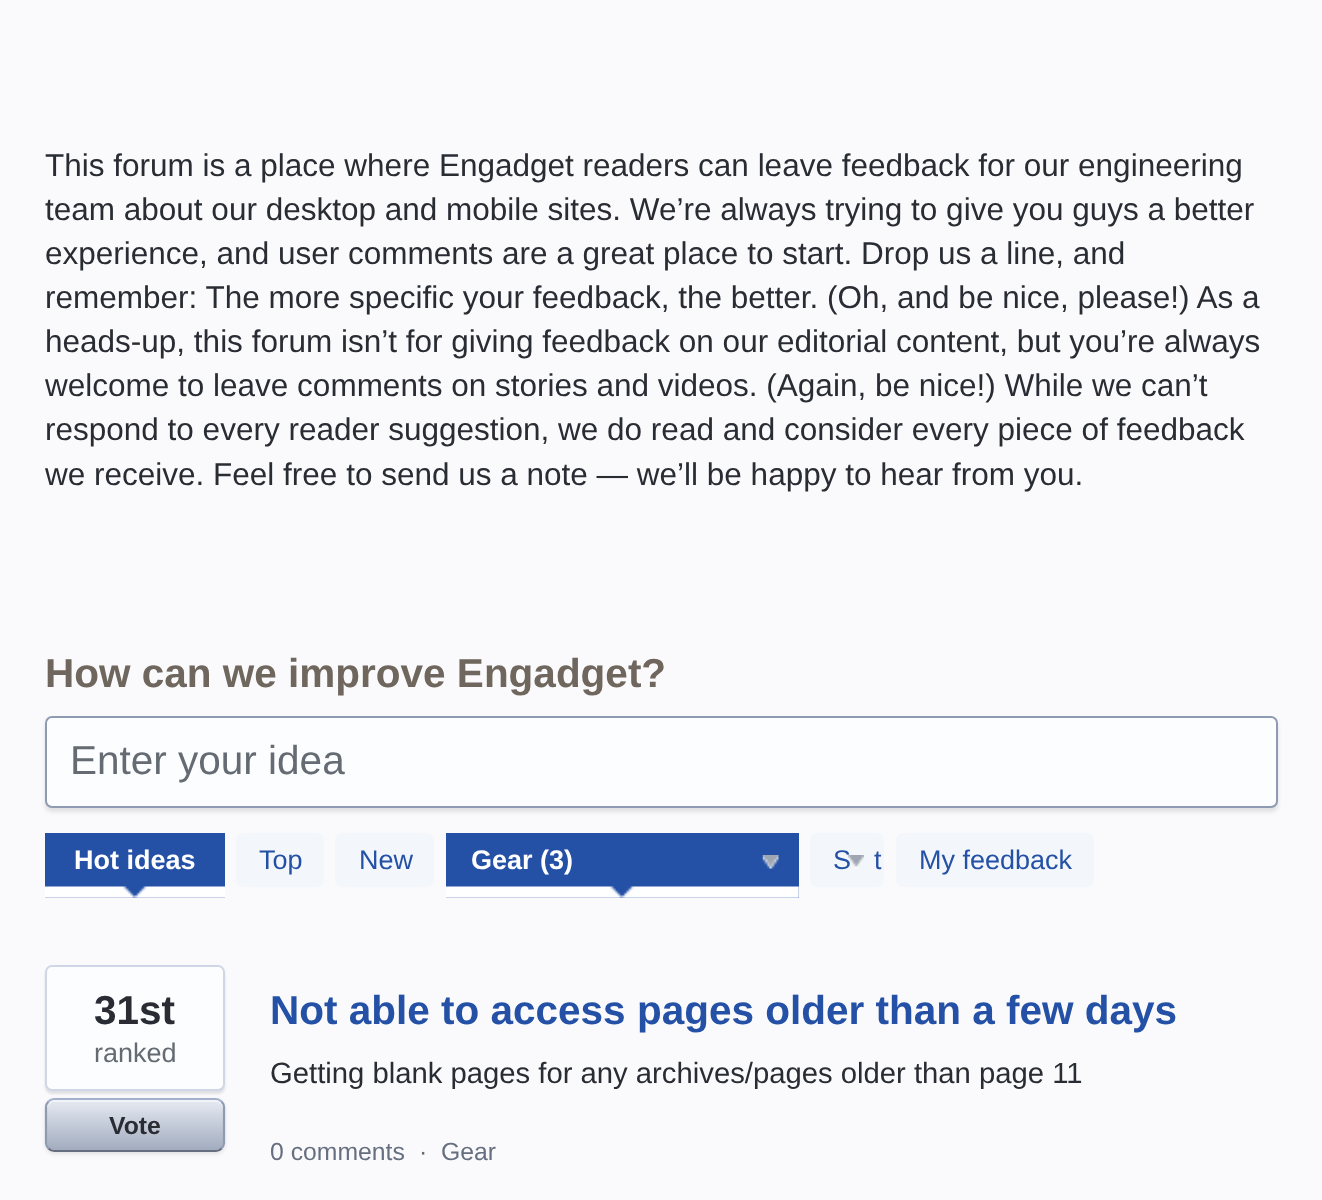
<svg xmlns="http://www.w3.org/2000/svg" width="1322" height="1200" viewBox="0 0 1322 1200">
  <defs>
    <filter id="blur1" x="-50%" y="-200%" width="200%" height="500%"><feGaussianBlur stdDeviation="2"/></filter>
    <filter id="blur2" x="-50%" y="-200%" width="200%" height="500%"><feGaussianBlur stdDeviation="1"/></filter>
    <linearGradient id="g1" gradientUnits="userSpaceOnUse" x1="47" y1="1100" x2="47" y2="1150"><stop offset="0" stop-color="#e6eaf2"/><stop offset="1" stop-color="#a2acbf"/></linearGradient>
  </defs>
  <rect width="100%" height="100%" fill="#fafafc"/>
  <text x="45" y="176" font-family="Liberation Sans" font-size="31.5" fill="#292c33">This forum is a place where Engadget readers can leave feedback for our engineering</text>
  <text x="45" y="220" font-family="Liberation Sans" font-size="31.5" fill="#292c33">team about our desktop and mobile sites. We’re always trying to give you guys a better</text>
  <text x="45" y="264" font-family="Liberation Sans" font-size="31.5" fill="#292c33">experience, and user comments are a great place to start. Drop us a line, and</text>
  <text x="45" y="308" font-family="Liberation Sans" font-size="31.5" fill="#292c33">remember: The more specific your feedback, the better. (Oh, and be nice, please!) As a</text>
  <text x="45" y="352" font-family="Liberation Sans" font-size="31.5" fill="#292c33">heads-up, this forum isn’t for giving feedback on our editorial content, but you’re always</text>
  <text x="45" y="396" font-family="Liberation Sans" font-size="31.5" fill="#292c33">welcome to leave comments on stories and videos. (Again, be nice!) While we can’t</text>
  <text x="45" y="440" font-family="Liberation Sans" font-size="31.5" fill="#292c33">respond to every reader suggestion, we do read and consider every piece of feedback</text>
  <text x="45" y="485" font-family="Liberation Sans" font-size="31.5" fill="#292c33">we receive. Feel free to send us a note — we’ll be happy to hear from you.</text>
  <text x="45" y="687" font-family="Liberation Sans" font-size="40.5" font-weight="bold" fill="#6f675e">How can we improve Engadget?</text>
  <rect x="45" y="720" width="1233" height="92" rx="7" fill="#000000" fill-opacity="0.1" filter="url(#blur1)"/>
  <rect x="46" y="717" width="1231" height="90" rx="6" fill="#fcfdff" stroke="#8f9bb3" stroke-width="2"/>
  <text x="70" y="774" font-family="Liberation Sans" font-size="40.5" fill="#646b72">Enter your idea</text>
  <rect x="45" y="833" width="180" height="65" fill="#2451a6"/>
  <image x="45" y="886" width="180" height="12" href="img1.png"/>
  <text x="74" y="869" font-family="Liberation Sans" font-size="27" font-weight="bold" fill="#ffffff">Hot ideas</text>
  <rect x="236" y="833" width="88" height="54" rx="7" fill="#f3f6fa"/>
  <text x="259" y="869" font-family="Liberation Sans" font-size="27" fill="#2451a6">Top</text>
  <rect x="335" y="833" width="99" height="54" rx="7" fill="#f3f6fa"/>
  <text x="359" y="869" font-family="Liberation Sans" font-size="27" fill="#2451a6">New</text>
  <rect x="446" y="833" width="353" height="65" fill="#2451a6"/>
  <image x="446" y="886" width="353" height="12" href="img2.png"/>
  <image x="762" y="855" width="17" height="14" href="img3.png"/>
  <text x="471" y="869" font-family="Liberation Sans" font-size="27" font-weight="bold" fill="#ffffff">Gear (3)</text>
  <rect x="810" y="833" width="74" height="54" rx="7" fill="#f3f6fa"/>
  <text x="833" y="869" font-family="Liberation Sans" font-size="27" fill="#2451a6">S</text>
  <text x="874" y="869" font-family="Liberation Sans" font-size="27" fill="#2451a6">t</text>
  <image x="848" y="855" width="16" height="14" href="img4.png"/>
  <rect x="896" y="833" width="198" height="54" rx="7" fill="#f3f6fa"/>
  <text x="919" y="869" font-family="Liberation Sans" font-size="27" fill="#2451a6">My feedback</text>
  <rect x="45" y="968" width="180" height="126" rx="7" fill="#000000" fill-opacity="0.1" filter="url(#blur2)"/>
  <rect x="46" y="966" width="178" height="124" rx="6" fill="#fcfdff" stroke="#cfd7e6" stroke-width="2"/>
  <text x="94" y="1024" font-family="Liberation Sans" font-size="40.5" font-weight="bold" fill="#292c33">31st</text>
  <text x="94" y="1062" font-family="Liberation Sans" font-size="27" fill="#646b72">ranked</text>
  <rect x="45" y="1100" width="180" height="54" rx="9" fill="#000000" fill-opacity="0.1" filter="url(#blur1)"/>
  <rect x="47" y="1100" width="176" height="50" rx="7" fill="url(#g1)"/>
  <path d="M54 1102H216C220 1102 223 1106 223 1109V1107C223 1103 220 1100 216 1100H54C50 1100 47 1103 47 1107V1109C47 1106 50 1102 54 1102Z" fill="#ffffff" fill-opacity="0.5"/>
  <path d="M48.5 1101.5C50 1100 52 1099 54 1099H216C218 1099 220 1100 221.5 1101.5" fill="none" stroke="#a3b1cc" stroke-width="2.2"/>
  <path d="M221.5 1101.5C223 1103 224 1105 224 1107V1143C224 1145 223 1147 221.5 1148.5" fill="none" stroke="#8f9bb3" stroke-width="2.2"/>
  <path d="M221.5 1148.5C220 1150 218 1151 216 1151H54C52 1151 50 1150 48.5 1148.5" fill="none" stroke="#666f80" stroke-width="2.2"/>
  <path d="M48.5 1148.5C47 1147 46 1145 46 1143V1107C46 1105 47 1103 48.5 1101.5" fill="none" stroke="#8f9bb3" stroke-width="2.2"/>
  <text x="109" y="1134" font-family="Liberation Sans" font-size="24.75" font-weight="bold" fill="#292c33">Vote</text>
  <text x="270" y="1024" font-family="Liberation Sans" font-size="40.5" font-weight="bold" fill="#2451a6">Not able to access pages older than a few days</text>
  <text x="270" y="1083" font-family="Liberation Sans" font-size="29.25" fill="#292c33">Getting blank pages for any archives/pages older than page 11</text>
  <text x="270" y="1160" font-family="Liberation Sans" font-size="24.75" fill="#666f80">0 comments</text>
  <text x="419" y="1160" font-family="Liberation Sans" font-size="24.75" fill="#646b72">·</text>
  <text x="441" y="1160" font-family="Liberation Sans" font-size="24.75" fill="#666f80">Gear</text>
</svg>
